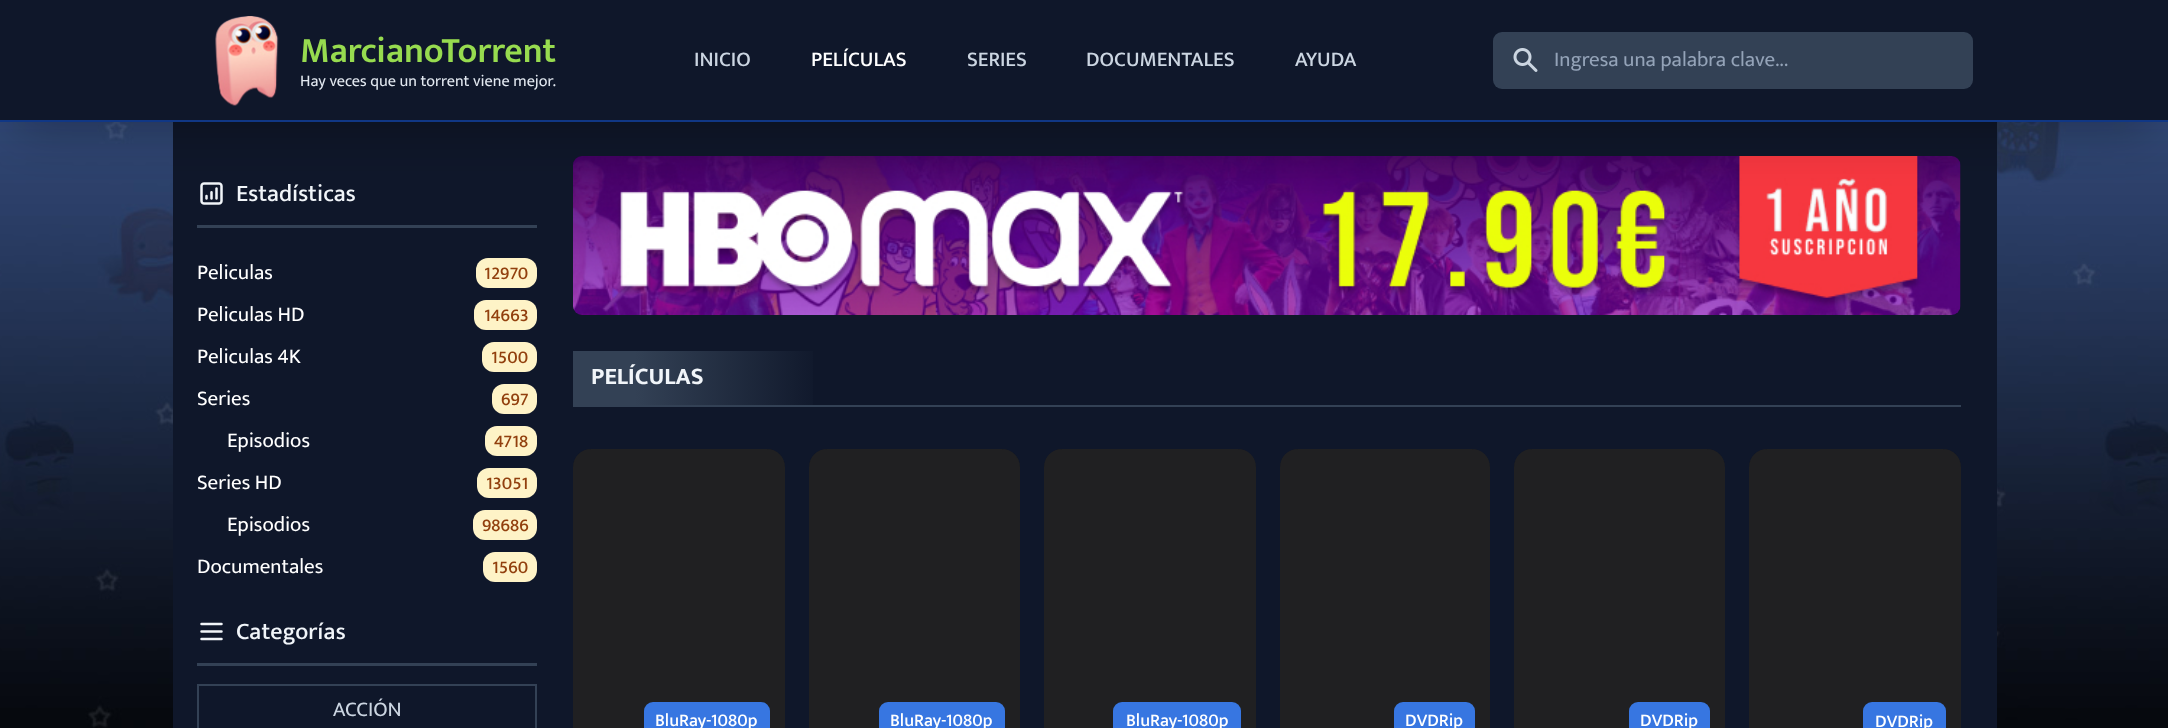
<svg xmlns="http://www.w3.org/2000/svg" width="2168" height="728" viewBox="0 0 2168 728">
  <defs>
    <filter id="blur1" x="-50%" y="-200%" width="200%" height="500%"><feGaussianBlur stdDeviation="26"/></filter>
    <linearGradient id="g1" gradientUnits="userSpaceOnUse" x1="573" y1="378" x2="824" y2="378"><stop offset="0.25" stop-color="#334155"/><stop offset="1" stop-color="#0f172a"/></linearGradient>
  </defs>
  <rect width="100%" height="100%" fill="#ffffff"/>
  <image x="0" y="122" width="2168" height="606" href="img1.png"/>
  <rect x="173" y="122" width="1824" height="606" fill="#0f172a"/>
  <image x="200" y="182" width="23" height="23" href="img4.png"/>
  <image x="573" y="156" width="1388" height="159" href="img5.png"/>
  <rect x="15" y="38" width="2139" height="91" fill="#000000" fill-opacity="0.3" filter="url(#blur1)"/>
  <rect x="0" y="0" width="2168" height="120" fill="#0f172a"/>
  <rect x="0" y="120" width="2168" height="2" fill="#103785"/>
  <image x="215" y="16" width="64" height="90" href="img2.png"/>
  <text x="300" y="62" font-family="Mukta" font-size="36" font-weight="600" fill="#97db4f">MarcianoTorrent</text>
  <text x="300" y="86" font-family="Mukta" font-size="16.25" fill="#e2e8f0">Hay veces que un torrent viene mejor.</text>
  <text x="694" y="66" font-family="Mukta" font-size="21" font-weight="500" fill="#cbd5e1">INICIO</text>
  <text x="811" y="66" font-family="Mukta" font-size="21" font-weight="500" fill="#ffffff">PELÍCULAS</text>
  <text x="967" y="66" font-family="Mukta" font-size="21" font-weight="500" fill="#cbd5e1">SERIES</text>
  <text x="1086" y="66" font-family="Mukta" font-size="21" font-weight="500" fill="#cbd5e1">DOCUMENTALES</text>
  <text x="1295" y="66" font-family="Mukta" font-size="21" font-weight="500" fill="#cbd5e1">AYUDA</text>
  <rect x="1493" y="32" width="480" height="57" rx="9" fill="#334155"/>
  <image x="1513" y="48" width="25" height="24" href="img3.png"/>
  <text x="1554" y="66" font-family="Mukta" font-size="21" fill="#94a3b8">Ingresa una palabra clave...</text>
  <rect x="197" y="225" width="340" height="3" fill="#334155"/>
  <text x="236" y="201" font-family="Mukta" font-size="24" font-weight="500" fill="#f1f5f9">Estadísticas</text>
  <text x="197" y="279" font-family="Mukta" font-size="21" fill="#ffffff">Peliculas</text>
  <rect x="476" y="258" width="61" height="30" rx="12" fill="#fef3c7"/>
  <text x="484" y="279" font-family="Mukta" font-size="18" font-weight="500" fill="#92400e">12970</text>
  <text x="197" y="321" font-family="Mukta" font-size="21" fill="#ffffff">Peliculas HD</text>
  <rect x="474" y="300" width="63" height="30" rx="12" fill="#fef3c7"/>
  <text x="484" y="321" font-family="Mukta" font-size="18" font-weight="500" fill="#92400e">14663</text>
  <text x="197" y="363" font-family="Mukta" font-size="21" fill="#ffffff">Peliculas 4K</text>
  <rect x="482" y="342" width="55" height="30" rx="12" fill="#fef3c7"/>
  <text x="491" y="363" font-family="Mukta" font-size="18" font-weight="500" fill="#92400e">1500</text>
  <text x="197" y="405" font-family="Mukta" font-size="21" fill="#ffffff">Series</text>
  <rect x="492" y="384" width="45" height="30" rx="12" fill="#fef3c7"/>
  <text x="501" y="405" font-family="Mukta" font-size="18" font-weight="500" fill="#92400e">697</text>
  <text x="227" y="447" font-family="Mukta" font-size="21" fill="#ffffff">Episodios</text>
  <rect x="485" y="426" width="52" height="30" rx="12" fill="#fef3c7"/>
  <text x="494" y="447" font-family="Mukta" font-size="18" font-weight="500" fill="#92400e">4718</text>
  <text x="197" y="489" font-family="Mukta" font-size="21" fill="#ffffff">Series HD</text>
  <rect x="477" y="468" width="60" height="30" rx="12" fill="#fef3c7"/>
  <text x="486" y="489" font-family="Mukta" font-size="18" font-weight="500" fill="#92400e">13051</text>
  <text x="227" y="531" font-family="Mukta" font-size="21" fill="#ffffff">Episodios</text>
  <rect x="473" y="510" width="64" height="30" rx="12" fill="#fef3c7"/>
  <text x="482" y="531" font-family="Mukta" font-size="18" font-weight="500" fill="#92400e">98686</text>
  <text x="197" y="573" font-family="Mukta" font-size="21" fill="#ffffff">Documentales</text>
  <rect x="483" y="552" width="54" height="30" rx="12" fill="#fef3c7"/>
  <text x="492" y="573" font-family="Mukta" font-size="18" font-weight="500" fill="#92400e">1560</text>
  <rect x="197" y="663" width="340" height="3" fill="#334155"/>
  <path d="M201.5 624H221.5M201.5 631.5H221.5M201.5 639H221.5" fill="none" stroke="#f1f5f9" stroke-width="2.5" stroke-linecap="round" stroke-linejoin="round"/>
  <text x="236" y="639" font-family="Mukta" font-size="24" font-weight="500" fill="#f1f5f9">Categorías</text>
  <rect x="198" y="685" width="338" height="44" fill="none" stroke="#334155" stroke-width="2"/>
  <text x="333" y="716" font-family="Mukta" font-size="21" fill="#cbd5e1">ACCIÓN</text>
  <rect x="573" y="405" width="1388" height="2" fill="#334155"/>
  <rect x="573" y="351" width="240" height="54" fill="url(#g1)"/>
  <text x="591" y="384" font-family="Mukta" font-size="24" font-weight="bold" fill="#f1f5f9">PELÍCULAS</text>
  <rect x="573" y="449" width="212" height="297" rx="18" fill="#222222"/>
  <rect x="644" y="702" width="126" height="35" rx="9" fill="#3b82f6"/>
  <rect x="573" y="449" width="212" height="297" rx="18" fill="#0f172a" fill-opacity="0.1"/>
  <text x="655" y="726" font-family="Mukta" font-size="18" font-weight="500" fill="#ffffff">BluRay-1080p</text>
  <rect x="809" y="449" width="211" height="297" rx="18" fill="#222222"/>
  <rect x="879" y="702" width="126" height="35" rx="9" fill="#3b82f6"/>
  <rect x="809" y="449" width="211" height="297" rx="18" fill="#0f172a" fill-opacity="0.1"/>
  <text x="890" y="726" font-family="Mukta" font-size="18" font-weight="500" fill="#ffffff">BluRay-1080p</text>
  <rect x="1044" y="449" width="212" height="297" rx="18" fill="#222222"/>
  <rect x="1113" y="702" width="128" height="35" rx="9" fill="#3b82f6"/>
  <rect x="1044" y="449" width="212" height="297" rx="18" fill="#0f172a" fill-opacity="0.1"/>
  <text x="1126" y="726" font-family="Mukta" font-size="18" font-weight="500" fill="#ffffff">BluRay-1080p</text>
  <rect x="1280" y="449" width="210" height="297" rx="18" fill="#222222"/>
  <rect x="1394" y="702" width="81" height="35" rx="9" fill="#3b82f6"/>
  <rect x="1280" y="449" width="210" height="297" rx="18" fill="#0f172a" fill-opacity="0.1"/>
  <text x="1405" y="726" font-family="Mukta" font-size="18" font-weight="500" fill="#ffffff">DVDRip</text>
  <rect x="1514" y="449" width="211" height="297" rx="18" fill="#222222"/>
  <rect x="1629" y="702" width="81" height="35" rx="9" fill="#3b82f6"/>
  <rect x="1514" y="449" width="211" height="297" rx="18" fill="#0f172a" fill-opacity="0.1"/>
  <text x="1640" y="726" font-family="Mukta" font-size="18" font-weight="500" fill="#ffffff">DVDRip</text>
  <rect x="1749" y="449" width="212" height="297" rx="18" fill="#222222"/>
  <rect x="1863" y="702" width="83" height="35" rx="9" fill="#3b82f6"/>
  <rect x="1749" y="449" width="212" height="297" rx="18" fill="#0f172a" fill-opacity="0.1"/>
  <text x="1875" y="727" font-family="Mukta" font-size="18" font-weight="500" fill="#ffffff">DVDRip</text>
</svg>
